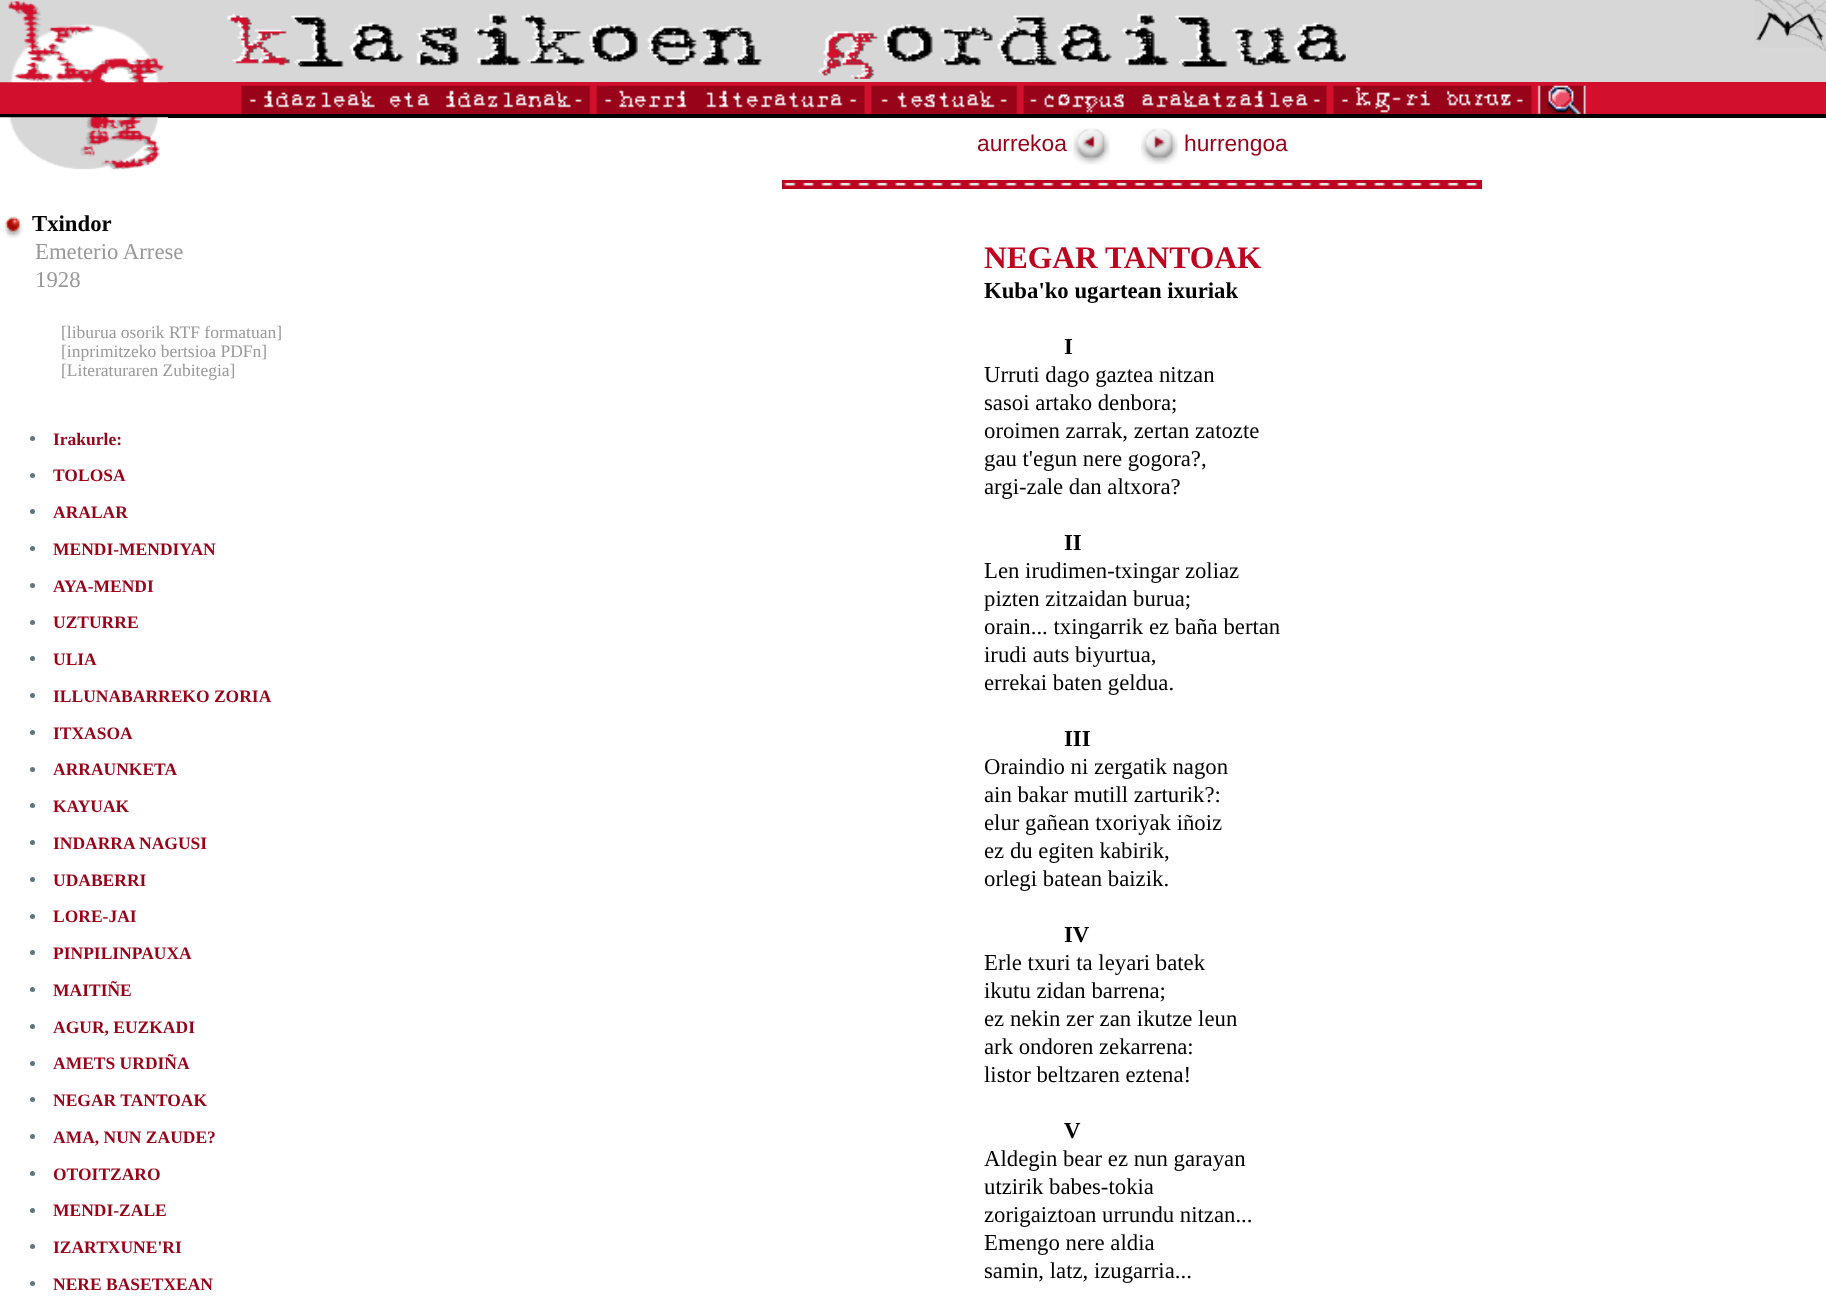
<svg xmlns="http://www.w3.org/2000/svg" width="1826" height="1296" viewBox="0 0 1826 1296">
  <rect width="100%" height="100%" fill="#ffffff"/>
  <rect x="0" y="0" width="1826" height="82" fill="#d7d7d7"/>
  <rect x="0" y="82" width="1826" height="32" fill="#d20f2c"/>
  <image x="0" y="1" width="168" height="82" href="img1.png"/>
  <image x="227" y="13" width="1119" height="66" href="img2.png"/>
  <image x="1754" y="0" width="72" height="51" href="img3.png"/>
  <image x="241" y="85" width="350" height="29" href="img4.png"/>
  <image x="596" y="85" width="269" height="29" href="img5.png"/>
  <image x="871" y="85" width="147" height="29" href="img6.png"/>
  <image x="1023" y="85" width="304" height="29" href="img7.png"/>
  <image x="1333" y="85" width="199" height="29" href="img8.png"/>
  <image x="1537" y="85" width="49" height="29" href="img9.png"/>
  <rect x="0" y="114" width="1826" height="4" fill="#000000"/>
  <image x="0" y="117" width="168" height="53" href="img10.png"/>
  <image x="3" y="216" width="20" height="22" href="img11.png"/>
  <text x="32" y="231" font-family="Liberation Serif" font-size="22.75" font-weight="bold" fill="#000000">Txindor</text>
  <text x="35" y="259" font-family="Liberation Serif" font-size="22.75" fill="#999999">Emeterio Arrese</text>
  <text x="35" y="287" font-family="Liberation Serif" font-size="22.75" fill="#999999">1928</text>
  <text x="61" y="338" font-family="Liberation Serif" font-size="17.5" fill="#999999">[liburua osorik RTF formatuan]</text>
  <text x="61" y="357" font-family="Liberation Serif" font-size="17.5" fill="#999999">[inprimitzeko bertsioa PDFn]</text>
  <text x="61" y="376" font-family="Liberation Serif" font-size="17.5" fill="#999999">[Literaturaren Zubitegia]</text>
  <circle cx="32.5" cy="438.5" r="2.5" fill="#5e7580"/>
  <text x="53" y="445" font-family="Liberation Serif" font-size="17.5" font-weight="bold" fill="#980319">Irakurle:</text>
  <circle cx="32.5" cy="475.5" r="2.5" fill="#5e7580"/>
  <text x="53" y="481" font-family="Liberation Serif" font-size="17.5" font-weight="bold" fill="#980319">TOLOSA</text>
  <circle cx="32.5" cy="511.5" r="2.5" fill="#5e7580"/>
  <text x="53" y="518" font-family="Liberation Serif" font-size="17.5" font-weight="bold" fill="#980319">ARALAR</text>
  <circle cx="32.5" cy="548.5" r="2.5" fill="#5e7580"/>
  <text x="53" y="555" font-family="Liberation Serif" font-size="17.5" font-weight="bold" fill="#980319">MENDI-MENDIYAN</text>
  <circle cx="32.5" cy="585.5" r="2.5" fill="#5e7580"/>
  <text x="53" y="592" font-family="Liberation Serif" font-size="17.5" font-weight="bold" fill="#980319">AYA-MENDI</text>
  <circle cx="32.5" cy="622.5" r="2.5" fill="#5e7580"/>
  <text x="53" y="628" font-family="Liberation Serif" font-size="17.5" font-weight="bold" fill="#980319">UZTURRE</text>
  <circle cx="32.5" cy="658.5" r="2.5" fill="#5e7580"/>
  <text x="53" y="665" font-family="Liberation Serif" font-size="17.5" font-weight="bold" fill="#980319">ULIA</text>
  <circle cx="32.5" cy="695.5" r="2.5" fill="#5e7580"/>
  <text x="53" y="702" font-family="Liberation Serif" font-size="17.5" font-weight="bold" fill="#980319">ILLUNABARREKO ZORIA</text>
  <circle cx="32.5" cy="732.5" r="2.5" fill="#5e7580"/>
  <text x="53" y="739" font-family="Liberation Serif" font-size="17.5" font-weight="bold" fill="#980319">ITXASOA</text>
  <circle cx="32.5" cy="769.5" r="2.5" fill="#5e7580"/>
  <text x="53" y="775" font-family="Liberation Serif" font-size="17.5" font-weight="bold" fill="#980319">ARRAUNKETA</text>
  <circle cx="32.5" cy="805.5" r="2.5" fill="#5e7580"/>
  <text x="53" y="812" font-family="Liberation Serif" font-size="17.5" font-weight="bold" fill="#980319">KAYUAK</text>
  <circle cx="32.5" cy="842.5" r="2.5" fill="#5e7580"/>
  <text x="53" y="849" font-family="Liberation Serif" font-size="17.5" font-weight="bold" fill="#980319">INDARRA NAGUSI</text>
  <circle cx="32.5" cy="879.5" r="2.5" fill="#5e7580"/>
  <text x="53" y="886" font-family="Liberation Serif" font-size="17.5" font-weight="bold" fill="#980319">UDABERRI</text>
  <circle cx="32.5" cy="916.5" r="2.5" fill="#5e7580"/>
  <text x="53" y="922" font-family="Liberation Serif" font-size="17.5" font-weight="bold" fill="#980319">LORE-JAI</text>
  <circle cx="32.5" cy="952.5" r="2.5" fill="#5e7580"/>
  <text x="53" y="959" font-family="Liberation Serif" font-size="17.5" font-weight="bold" fill="#980319">PINPILINPAUXA</text>
  <circle cx="32.5" cy="989.5" r="2.5" fill="#5e7580"/>
  <text x="53" y="996" font-family="Liberation Serif" font-size="17.5" font-weight="bold" fill="#980319">MAITIÑE</text>
  <circle cx="32.5" cy="1026.5" r="2.5" fill="#5e7580"/>
  <text x="53" y="1033" font-family="Liberation Serif" font-size="17.5" font-weight="bold" fill="#980319">AGUR, EUZKADI</text>
  <circle cx="32.5" cy="1063.5" r="2.5" fill="#5e7580"/>
  <text x="53" y="1069" font-family="Liberation Serif" font-size="17.5" font-weight="bold" fill="#980319">AMETS URDIÑA</text>
  <circle cx="32.5" cy="1099.5" r="2.5" fill="#5e7580"/>
  <text x="53" y="1106" font-family="Liberation Serif" font-size="17.5" font-weight="bold" fill="#980319">NEGAR TANTOAK</text>
  <circle cx="32.5" cy="1136.5" r="2.5" fill="#5e7580"/>
  <text x="53" y="1143" font-family="Liberation Serif" font-size="17.5" font-weight="bold" fill="#980319">AMA, NUN ZAUDE?</text>
  <circle cx="32.5" cy="1173.5" r="2.5" fill="#5e7580"/>
  <text x="53" y="1180" font-family="Liberation Serif" font-size="17.5" font-weight="bold" fill="#980319">OTOITZARO</text>
  <circle cx="32.5" cy="1210.5" r="2.5" fill="#5e7580"/>
  <text x="53" y="1216" font-family="Liberation Serif" font-size="17.5" font-weight="bold" fill="#980319">MENDI-ZALE</text>
  <circle cx="32.5" cy="1246.5" r="2.5" fill="#5e7580"/>
  <text x="53" y="1253" font-family="Liberation Serif" font-size="17.5" font-weight="bold" fill="#980319">IZARTXUNE'RI</text>
  <circle cx="32.5" cy="1283.5" r="2.5" fill="#5e7580"/>
  <text x="53" y="1290" font-family="Liberation Serif" font-size="17.5" font-weight="bold" fill="#980319">NERE BASETXEAN</text>
  <text x="977" y="151" font-family="Liberation Sans" font-size="22.75" fill="#980319">aurrekoa</text>
  <image x="1072" y="128" width="38" height="37" href="img12.png"/>
  <image x="1141" y="128" width="37" height="37" href="img13.png"/>
  <text x="1184" y="151" font-family="Liberation Sans" font-size="22.75" fill="#980319">hurrengoa</text>
  <rect x="782" y="180" width="700" height="9" fill="#bc031f"/>
  <image x="784" y="182" width="694" height="4" href="img14.png"/>
  <text x="984" y="268" font-family="Liberation Serif" font-size="31.5" font-weight="bold" fill="#bc031f">NEGAR TANTOAK</text>
  <text x="984" y="298" font-family="Liberation Serif" font-size="22.75" font-weight="bold" fill="#000000">Kuba'ko ugartean ixuriak</text>
  <text x="1064" y="354" font-family="Liberation Serif" font-size="22.75" font-weight="bold" fill="#000000">I</text>
  <text x="984" y="382" font-family="Liberation Serif" font-size="22.75" fill="#000000">Urruti dago gaztea nitzan</text>
  <text x="984" y="410" font-family="Liberation Serif" font-size="22.75" fill="#000000">sasoi artako denbora;</text>
  <text x="984" y="438" font-family="Liberation Serif" font-size="22.75" fill="#000000">oroimen zarrak, zertan zatozte</text>
  <text x="984" y="466" font-family="Liberation Serif" font-size="22.75" fill="#000000">gau t'egun nere gogora?,</text>
  <text x="984" y="494" font-family="Liberation Serif" font-size="22.75" fill="#000000">argi-zale dan altxora?</text>
  <text x="1064" y="550" font-family="Liberation Serif" font-size="22.75" font-weight="bold" fill="#000000">II</text>
  <text x="984" y="578" font-family="Liberation Serif" font-size="22.75" fill="#000000">Len irudimen-txingar zoliaz</text>
  <text x="984" y="606" font-family="Liberation Serif" font-size="22.75" fill="#000000">pizten zitzaidan burua;</text>
  <text x="984" y="634" font-family="Liberation Serif" font-size="22.75" fill="#000000">orain... txingarrik ez baña bertan</text>
  <text x="984" y="662" font-family="Liberation Serif" font-size="22.75" fill="#000000">irudi auts biyurtua,</text>
  <text x="984" y="690" font-family="Liberation Serif" font-size="22.75" fill="#000000">errekai baten geldua.</text>
  <text x="1064" y="746" font-family="Liberation Serif" font-size="22.75" font-weight="bold" fill="#000000">III</text>
  <text x="984" y="774" font-family="Liberation Serif" font-size="22.75" fill="#000000">Oraindio ni zergatik nagon</text>
  <text x="984" y="802" font-family="Liberation Serif" font-size="22.75" fill="#000000">ain bakar mutill zarturik?:</text>
  <text x="984" y="830" font-family="Liberation Serif" font-size="22.75" fill="#000000">elur gañean txoriyak iñoiz</text>
  <text x="984" y="858" font-family="Liberation Serif" font-size="22.75" fill="#000000">ez du egiten kabirik,</text>
  <text x="984" y="886" font-family="Liberation Serif" font-size="22.75" fill="#000000">orlegi batean baizik.</text>
  <text x="1064" y="942" font-family="Liberation Serif" font-size="22.75" font-weight="bold" fill="#000000">IV</text>
  <text x="984" y="970" font-family="Liberation Serif" font-size="22.75" fill="#000000">Erle txuri ta leyari batek</text>
  <text x="984" y="998" font-family="Liberation Serif" font-size="22.75" fill="#000000">ikutu zidan barrena;</text>
  <text x="984" y="1026" font-family="Liberation Serif" font-size="22.75" fill="#000000">ez nekin zer zan ikutze leun</text>
  <text x="984" y="1054" font-family="Liberation Serif" font-size="22.75" fill="#000000">ark ondoren zekarrena:</text>
  <text x="984" y="1082" font-family="Liberation Serif" font-size="22.75" fill="#000000">listor beltzaren eztena!</text>
  <text x="1064" y="1138" font-family="Liberation Serif" font-size="22.75" font-weight="bold" fill="#000000">V</text>
  <text x="984" y="1166" font-family="Liberation Serif" font-size="22.75" fill="#000000">Aldegin bear ez nun garayan</text>
  <text x="984" y="1194" font-family="Liberation Serif" font-size="22.75" fill="#000000">utzirik babes-tokia</text>
  <text x="984" y="1222" font-family="Liberation Serif" font-size="22.75" fill="#000000">zorigaiztoan urrundu nitzan...</text>
  <text x="984" y="1250" font-family="Liberation Serif" font-size="22.75" fill="#000000">Emengo nere aldia</text>
  <text x="984" y="1278" font-family="Liberation Serif" font-size="22.75" fill="#000000">samin, latz, izugarria...</text>
</svg>
